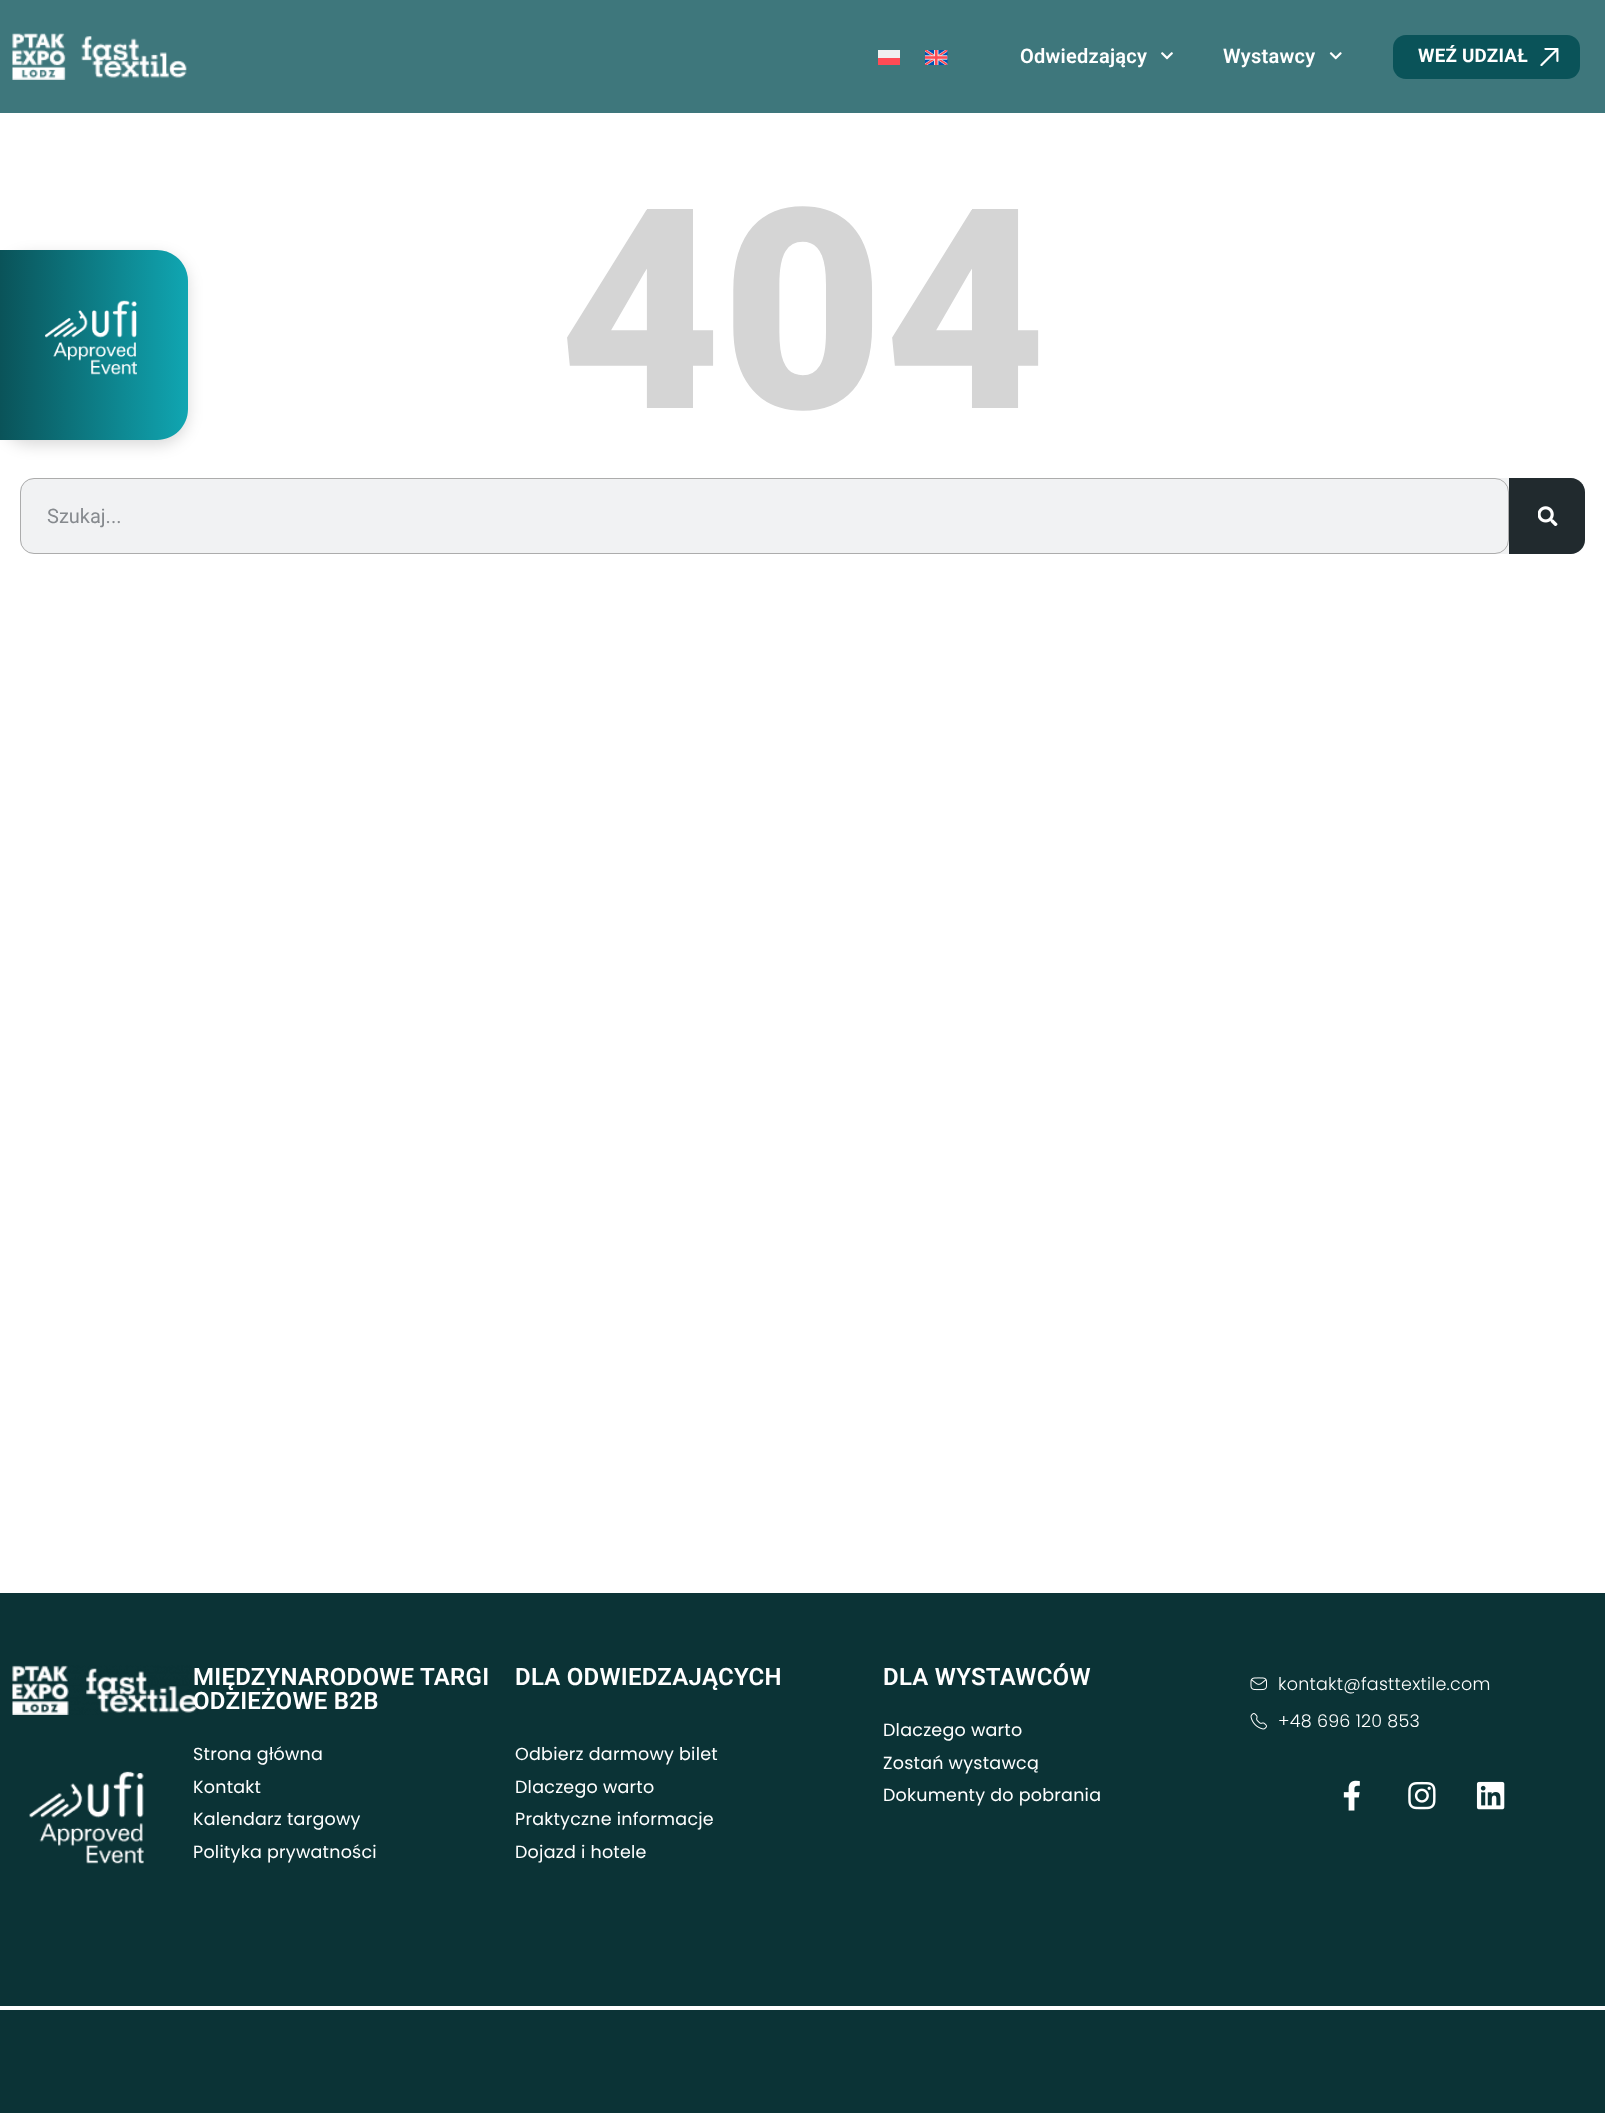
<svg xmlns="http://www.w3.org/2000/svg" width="1605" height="2113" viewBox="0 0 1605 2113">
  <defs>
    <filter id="blur1" x="-50%" y="-200%" width="200%" height="500%"><feGaussianBlur stdDeviation="7.5"/></filter>
    <linearGradient id="g1" gradientUnits="userSpaceOnUse" x1="0" y1="345" x2="188" y2="345"><stop offset="0" stop-color="#0a5359"/><stop offset="1" stop-color="#10a6b2"/></linearGradient>
  </defs>
  <rect width="100%" height="100%" fill="#ffffff"/>
  <rect x="0" y="0" width="1605" height="113" fill="#3e777c"/>
  <image x="12" y="33" width="175" height="47" href="img1.png"/>
  <rect x="878" y="50" width="22" height="8" fill="#f0f0f0"/>
  <rect x="878" y="58" width="22" height="7" fill="#ff4b55"/>
  <image x="925" y="50" width="23" height="15" href="img2.png"/>
  <text x="1020" y="63" font-family="Roboto" font-size="20" font-weight="600" letter-spacing="0.25" fill="#ffffff">Odwiedzający</text>
  <image x="1161" y="52" width="12" height="8" href="img3.png"/>
  <text x="1223" y="63" font-family="Roboto" font-size="20" font-weight="600" letter-spacing="0.25" fill="#ffffff">Wystawcy</text>
  <image x="1329" y="52" width="13" height="8" href="img4.png"/>
  <rect x="1393" y="35" width="187" height="44" rx="13" fill="#0a5359"/>
  <text x="1418" y="62" font-family="Roboto" font-size="18.75" font-weight="bold" letter-spacing="0.25" fill="#ffffff">WEŹ UDZIAŁ</text>
  <image x="1540" y="48" width="19" height="18" href="img5.png"/>
  <text x="559" y="408" font-family="Roboto" font-size="280" font-weight="900" letter-spacing="0.25" fill="#d5d5d5">404</text>
  <rect x="20" y="478" width="1565" height="76" rx="14" fill="#f1f2f3"/>
  <rect x="20.5" y="478.5" width="1488" height="75" rx="13.5" fill="none" stroke="#acacac"/>
  <text x="47" y="523" font-family="Roboto" font-size="20" fill="#868a8e">Szukaj...</text>
  <path d="M1509 478H1571C1578.5 478 1585 484.5 1585 492V540C1585 547.5 1578.5 554 1571 554H1509Z" fill="#212a2e"/>
  <image x="1538" y="506" width="20" height="20" href="img6.png"/>
  <rect x="0" y="255" width="188" height="190" rx="31" fill="#000000" fill-opacity="0.15" filter="url(#blur1)"/>
  <path d="M0 250H157C174 250 188 264 188 281V409C188 426 174 440 157 440H0Z" fill="url(#g1)"/>
  <image x="45" y="300" width="92" height="75" href="img7.png"/>
  <rect x="0" y="1593" width="1605" height="520" fill="#0b3336"/>
  <rect x="0" y="2006" width="1605" height="4" fill="#ffffff"/>
  <image x="12" y="1665" width="186" height="50" href="img8.png"/>
  <image x="29" y="1771" width="115" height="93" href="img9.png"/>
  <text x="193" y="1685" font-family="Roboto" font-size="24" font-weight="600" letter-spacing="0.25" fill="#ffffff">MIĘDZYNARODOWE TARGI</text>
  <text x="193" y="1709" font-family="Roboto" font-size="24" font-weight="600" letter-spacing="0.25" fill="#ffffff">ODZIEŻOWE B2B</text>
  <text x="193" y="1760" font-family="Poppins" font-size="17.5" letter-spacing="0.25" fill="#ffffff">Strona główna</text>
  <text x="193" y="1793" font-family="Poppins" font-size="17.5" letter-spacing="0.25" fill="#ffffff">Kontakt</text>
  <text x="193" y="1825" font-family="Poppins" font-size="17.5" letter-spacing="0.25" fill="#ffffff">Kalendarz targowy</text>
  <text x="193" y="1858" font-family="Poppins" font-size="17.5" letter-spacing="0.25" fill="#ffffff">Polityka prywatności</text>
  <text x="515" y="1685" font-family="Roboto" font-size="24" font-weight="600" letter-spacing="0.25" fill="#ffffff">DLA ODWIEDZAJĄCYCH</text>
  <text x="515" y="1760" font-family="Poppins" font-size="17.5" letter-spacing="0.25" fill="#ffffff">Odbierz darmowy bilet</text>
  <text x="515" y="1793" font-family="Poppins" font-size="17.5" letter-spacing="0.25" fill="#ffffff">Dlaczego warto</text>
  <text x="515" y="1825" font-family="Poppins" font-size="17.5" letter-spacing="0.25" fill="#ffffff">Praktyczne informacje</text>
  <text x="515" y="1858" font-family="Poppins" font-size="17.5" letter-spacing="0.25" fill="#ffffff">Dojazd i hotele</text>
  <text x="883" y="1685" font-family="Roboto" font-size="24" font-weight="600" letter-spacing="0.25" fill="#ffffff">DLA WYSTAWCÓW</text>
  <text x="883" y="1736" font-family="Poppins" font-size="17.5" letter-spacing="0.25" fill="#ffffff">Dlaczego warto</text>
  <text x="883" y="1769" font-family="Poppins" font-size="17.5" letter-spacing="0.25" fill="#ffffff">Zostań wystawcą</text>
  <text x="883" y="1801" font-family="Poppins" font-size="17.5" letter-spacing="0.25" fill="#ffffff">Dokumenty do pobrania</text>
  <image x="1250" y="1677" width="17" height="14" href="img10.png"/>
  <text x="1278" y="1690" font-family="Poppins" font-size="17.5" font-weight="300" letter-spacing="0.25" fill="#ffffff">kontakt@fasttextile.com</text>
  <image x="1250" y="1713" width="17" height="17" href="img11.png"/>
  <text x="1278" y="1727" font-family="Poppins" font-size="17.5" font-weight="300" letter-spacing="0.25" fill="#ffffff">+48 696 120 853</text>
  <image x="1343" y="1780" width="17" height="31" href="img12.png"/>
  <image x="1408" y="1781" width="28" height="29" href="img13.png"/>
  <image x="1476" y="1781" width="29" height="29" href="img14.png"/>
</svg>
